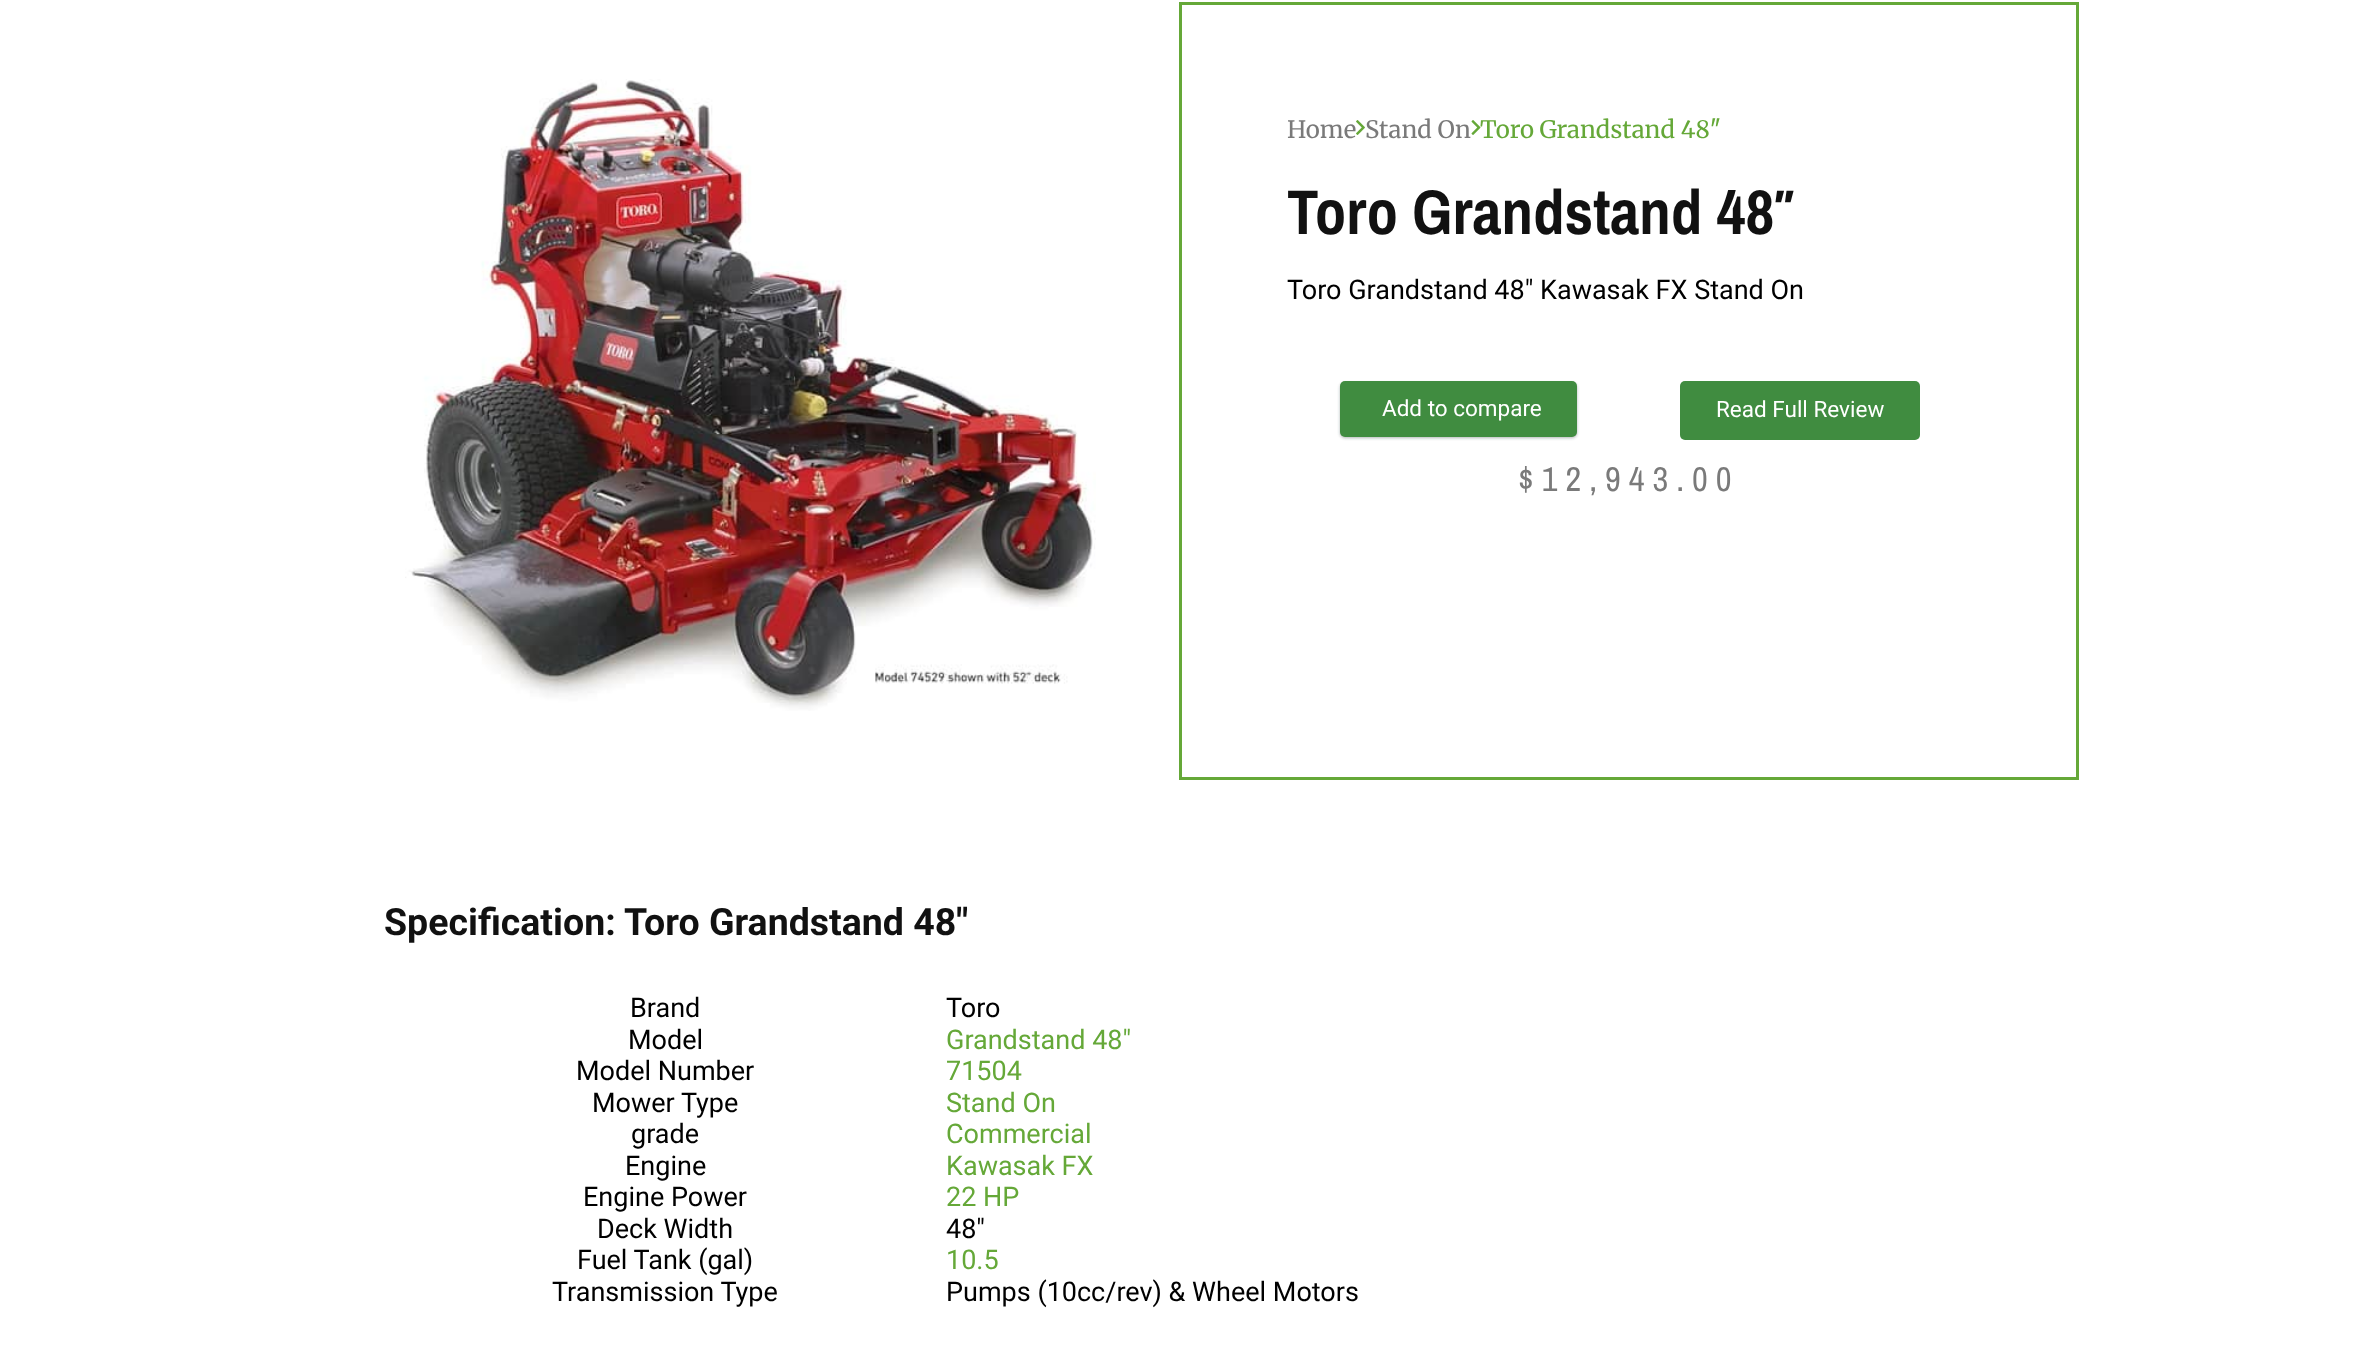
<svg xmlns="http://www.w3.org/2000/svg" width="2357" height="1355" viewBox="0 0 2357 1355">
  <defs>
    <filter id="blur1" x="-50%" y="-200%" width="200%" height="500%"><feGaussianBlur stdDeviation="1.5"/></filter>
  </defs>
  <rect width="100%" height="100%" fill="#ffffff"/>
  <image x="405" y="79" width="691" height="632" href="img1.png"/>
  <rect x="1180.5" y="3.5" width="897" height="775" fill="none" stroke="#65a838" stroke-width="3"/>
  <text x="1287" y="138" font-family="Merriweather" font-size="24" fill="#7a7a7a">Home</text>
  <image x="1356" y="120" width="9" height="15" href="img2.png"/>
  <text x="1365" y="138" font-family="Merriweather" font-size="24" fill="#7a7a7a">Stand On</text>
  <image x="1471" y="120" width="10" height="15" href="img3.png"/>
  <text x="1480" y="138" font-family="Merriweather" font-size="24" fill="#65a838">Toro Grandstand 48″</text>
  <text x="1287" y="234" font-family="Archivo Narrow" font-size="63" font-weight="bold" fill="#111111">Toro Grandstand 48″</text>
  <text x="1287" y="299" font-family="Roboto" font-size="27" fill="#000000">Toro Grandstand 48″ Kawasak FX Stand On</text>
  <rect x="1340" y="383" width="237" height="55" rx="5" fill="#000000" fill-opacity="0.08" filter="url(#blur1)"/>
  <rect x="1340" y="383" width="237" height="55" rx="5" fill="#3c4043" fill-opacity="0.3" filter="url(#blur1)"/>
  <rect x="1340" y="381" width="237" height="56" rx="5" fill="#408c40"/>
  <text x="1382" y="416" font-family="Roboto" font-size="22.5" fill="#ffffff">Add to compare</text>
  <rect x="1680" y="381" width="240" height="59" rx="5" fill="#408c40"/>
  <text x="1716" y="417" font-family="Roboto" font-size="22.5" fill="#ffffff">Read Full Review</text>
  <text x="1518" y="491" font-family="Archivo Narrow" font-size="34.5" letter-spacing="8" fill="#7a7a7a">$12,943.00</text>
  <text x="384" y="935" font-family="Roboto" font-size="37.5" font-weight="bold" fill="#111111">Specification:</text>
  <text x="624" y="935" font-family="Roboto" font-size="37.5" font-weight="bold" fill="#111111">Toro Grandstand 48″</text>
  <text x="630" y="1017" font-family="Roboto" font-size="27" fill="#000000">Brand</text>
  <text x="946" y="1017" font-family="Roboto" font-size="27" fill="#000000">Toro</text>
  <text x="628" y="1049" font-family="Roboto" font-size="27" fill="#000000">Model</text>
  <text x="946" y="1049" font-family="Roboto" font-size="27" fill="#65a838">Grandstand 48"</text>
  <text x="576" y="1080" font-family="Roboto" font-size="27" fill="#000000">Model Number</text>
  <text x="946" y="1080" font-family="Roboto" font-size="27" fill="#65a838">71504</text>
  <text x="592" y="1112" font-family="Roboto" font-size="27" fill="#000000">Mower Type</text>
  <text x="946" y="1112" font-family="Roboto" font-size="27" fill="#65a838">Stand On</text>
  <text x="631" y="1143" font-family="Roboto" font-size="27" fill="#000000">grade</text>
  <text x="946" y="1143" font-family="Roboto" font-size="27" fill="#65a838">Commercial</text>
  <text x="625" y="1175" font-family="Roboto" font-size="27" fill="#000000">Engine</text>
  <text x="946" y="1175" font-family="Roboto" font-size="27" fill="#65a838">Kawasak FX</text>
  <text x="583" y="1206" font-family="Roboto" font-size="27" fill="#000000">Engine Power</text>
  <text x="946" y="1206" font-family="Roboto" font-size="27" fill="#65a838">22 HP</text>
  <text x="597" y="1238" font-family="Roboto" font-size="27" fill="#000000">Deck Width</text>
  <text x="946" y="1238" font-family="Roboto" font-size="27" fill="#000000">48"</text>
  <text x="577" y="1269" font-family="Roboto" font-size="27" fill="#000000">Fuel Tank (gal)</text>
  <text x="946" y="1269" font-family="Roboto" font-size="27" fill="#65a838">10.5</text>
  <text x="552" y="1301" font-family="Roboto" font-size="27" fill="#000000">Transmission Type</text>
  <text x="946" y="1301" font-family="Roboto" font-size="27" fill="#000000">Pumps (10cc/rev) &amp; Wheel Motors</text>
</svg>
